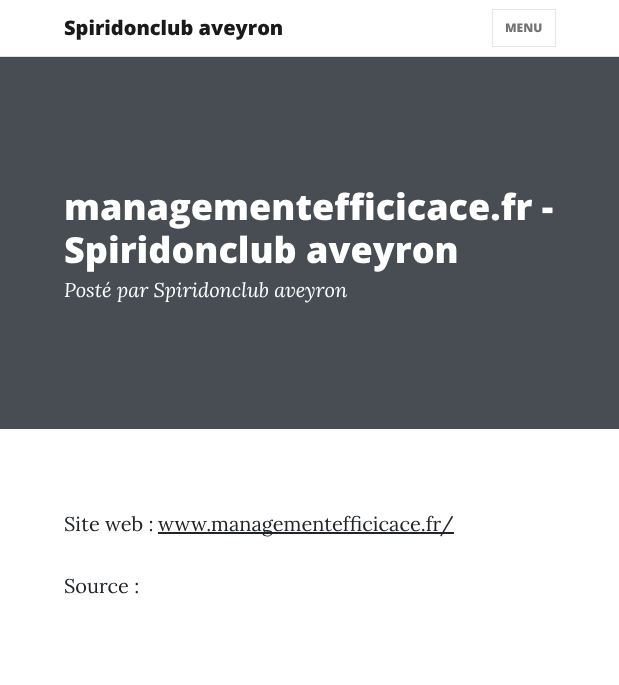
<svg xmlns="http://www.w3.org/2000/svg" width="619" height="685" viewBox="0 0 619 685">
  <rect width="100%" height="100%" fill="#ffffff"/>
  <rect x="0" y="56" width="619" height="1" fill="#dee2e6"/>
  <text x="64" y="35" font-family="Open Sans" font-size="20" font-weight="800" fill="#1a1a1a">Spiridonclub aveyron</text>
  <rect x="492.5" y="9.5" width="63" height="37" fill="none" stroke="#e6e6e6"/>
  <text x="505" y="32" font-family="Open Sans" font-size="12" font-weight="800" fill="#737373">MENU</text>
  <rect x="0" y="57" width="619" height="372" fill="#474d53"/>
  <text x="64" y="220" font-family="Open Sans" font-size="36" font-weight="800" fill="#ffffff">managementefficicace.fr -</text>
  <text x="64" y="263" font-family="Open Sans" font-size="36" font-weight="800" fill="#ffffff">Spiridonclub aveyron</text>
  <text x="64" y="297" font-family="Lora" font-size="20" font-style="italic" fill="#ffffff">Posté par Spiridonclub aveyron</text>
  <text x="64" y="531" font-family="Lora" font-size="20" fill="#212529">Site web :</text>
  <rect x="158" y="532" width="296" height="2" fill="#212529"/>
  <text x="158" y="531" font-family="Lora" font-size="20" fill="#212529">www.managementefficicace.fr/</text>
  <text x="64" y="593" font-family="Lora" font-size="20" fill="#212529">Source :</text>
</svg>
